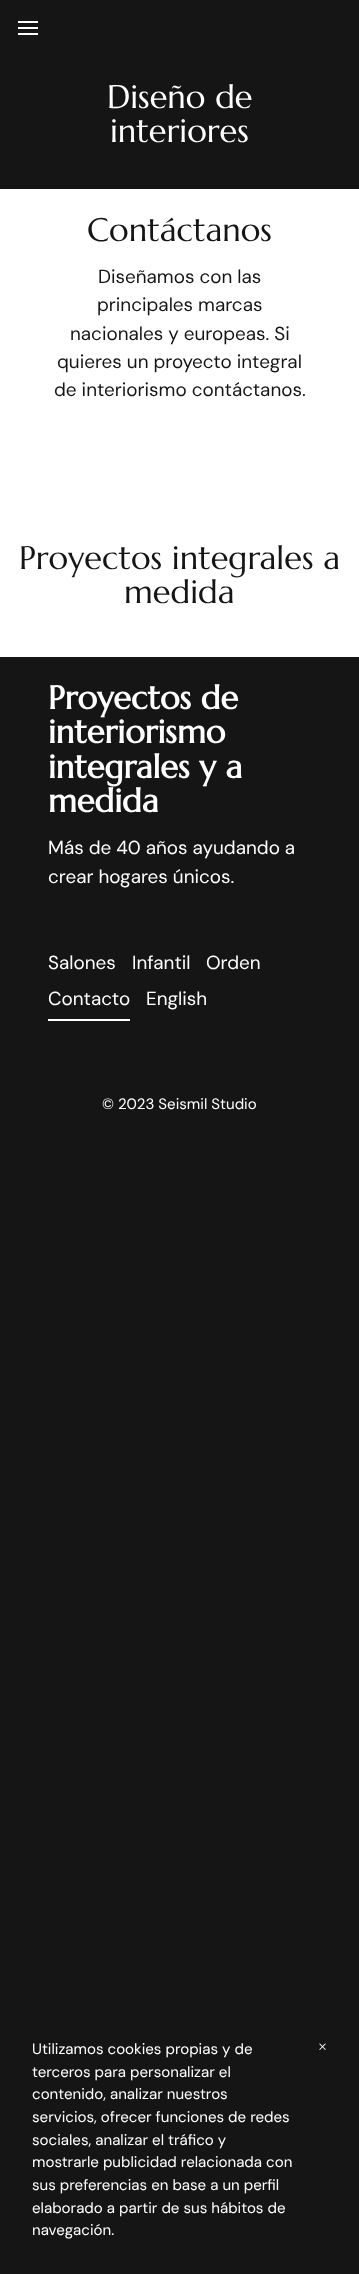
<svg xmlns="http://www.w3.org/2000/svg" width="359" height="2274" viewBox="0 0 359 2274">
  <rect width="100%" height="100%" fill="#ffffff"/>
  <rect x="0" y="0" width="359" height="189" fill="#151515"/>
  <image x="18" y="21" width="20" height="14" href="img1.png"/>
  <text x="107" y="108" font-family="Marcellus" font-size="32.6" fill="#ffffff">Diseño de</text>
  <text x="110" y="142" font-family="Marcellus" font-size="32.6" fill="#ffffff">interiores</text>
  <text x="87" y="241" font-family="Marcellus" font-size="32.6" fill="#151515">Contáctanos</text>
  <text x="98" y="283" font-family="DM Sans" font-size="18.9" fill="#151515">Diseñamos con las</text>
  <text x="97" y="311" font-family="DM Sans" font-size="18.9" fill="#151515">principales marcas</text>
  <text x="70" y="340" font-family="DM Sans" font-size="18.9" fill="#151515">nacionales y europeas. Si</text>
  <text x="57" y="368" font-family="DM Sans" font-size="18.9" fill="#151515">quieres un proyecto integral</text>
  <text x="54" y="396" font-family="DM Sans" font-size="18.9" fill="#151515">de interiorismo contáctanos.</text>
  <text x="19" y="569" font-family="Marcellus" font-size="32.6" fill="#151515">Proyectos integrales a</text>
  <text x="124" y="603" font-family="Marcellus" font-size="32.6" fill="#151515">medida</text>
  <rect x="0" y="657" width="359" height="1617" fill="#151515"/>
  <text x="48" y="709" font-family="Marcellus" font-size="32.6" font-weight="bold" fill="#ffffff">Proyectos de</text>
  <text x="48" y="743" font-family="Marcellus" font-size="32.6" font-weight="bold" fill="#ffffff">interiorismo</text>
  <text x="48" y="778" font-family="Marcellus" font-size="32.6" font-weight="bold" fill="#ffffff">integrales y a</text>
  <text x="48" y="812" font-family="Marcellus" font-size="32.6" font-weight="bold" fill="#ffffff">medida</text>
  <text x="48" y="854" font-family="DM Sans" font-size="18.9" fill="#ffffff">Más de 40 años ayudando a</text>
  <text x="48" y="883" font-family="DM Sans" font-size="18.9" fill="#ffffff">crear hogares únicos.</text>
  <text x="48" y="969" font-family="DM Sans" font-size="18.9" fill="#ffffff">Salones</text>
  <text x="132" y="969" font-family="DM Sans" font-size="18.9" fill="#ffffff">Infantil</text>
  <text x="206" y="969" font-family="DM Sans" font-size="18.9" fill="#ffffff">Orden</text>
  <text x="48" y="1005" font-family="DM Sans" font-size="18.9" fill="#ffffff">Contacto</text>
  <rect x="48" y="1019" width="82" height="2" fill="#ffffff"/>
  <text x="146" y="1005" font-family="DM Sans" font-size="18.9" fill="#ffffff">English</text>
  <text x="102" y="1109" font-family="DM Sans" font-size="15.1" fill="#ffffff">© 2023 Seismil Studio</text>
  <text x="32" y="2054" font-family="DM Sans" font-size="15.1" fill="#ffffff">Utilizamos cookies propias y de</text>
  <text x="32" y="2077" font-family="DM Sans" font-size="15.1" fill="#ffffff">terceros para personalizar el</text>
  <text x="32" y="2099" font-family="DM Sans" font-size="15.1" fill="#ffffff">contenido, analizar nuestros</text>
  <text x="32" y="2122" font-family="DM Sans" font-size="15.1" fill="#ffffff">servicios, ofrecer funciones de redes</text>
  <text x="32" y="2145" font-family="DM Sans" font-size="15.1" fill="#ffffff">sociales, analizar el tráfico y</text>
  <text x="32" y="2167" font-family="DM Sans" font-size="15.1" fill="#ffffff">mostrarle publicidad relacionada con</text>
  <text x="32" y="2190" font-family="DM Sans" font-size="15.1" fill="#ffffff">sus preferencias en base a un perfil</text>
  <text x="32" y="2213" font-family="DM Sans" font-size="15.1" fill="#ffffff">elaborado a partir de sus hábitos de</text>
  <text x="32" y="2235" font-family="DM Sans" font-size="15.1" fill="#ffffff">navegación.</text>
  <text x="318" y="2052" font-family="Liberation Serif" font-size="16" fill="#ffffff">×</text>
</svg>
